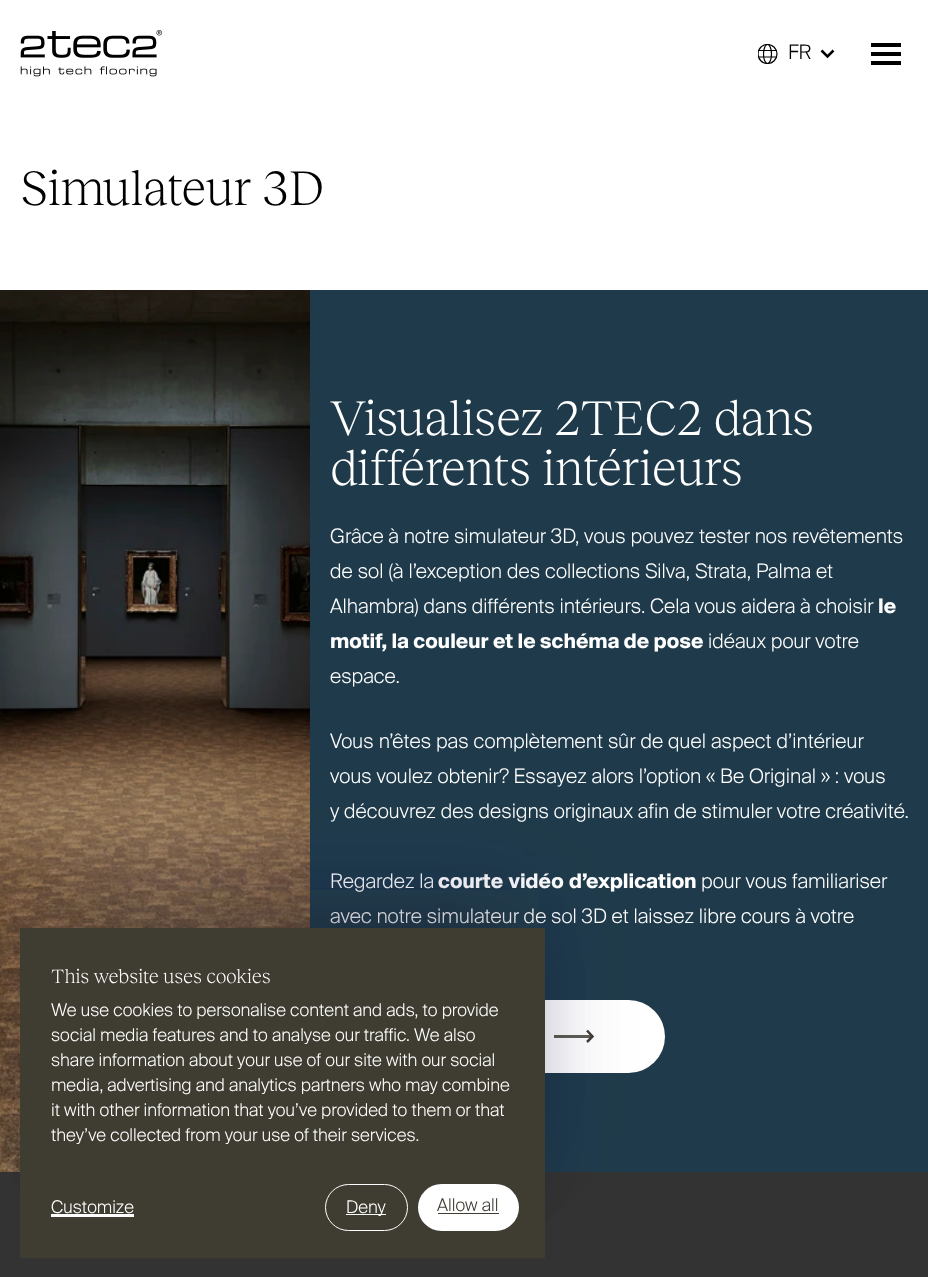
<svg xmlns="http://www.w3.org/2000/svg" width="928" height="1277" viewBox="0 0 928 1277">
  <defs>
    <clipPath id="clip1"><rect x="758" y="44" width="20" height="20"/></clipPath>
    <filter id="blur1" x="-50%" y="-200%" width="200%" height="500%"><feGaussianBlur stdDeviation="37.5"/></filter>
    <filter id="blur2" x="-50%" y="-200%" width="200%" height="500%"><feGaussianBlur stdDeviation="50"/></filter>
  </defs>
  <rect width="100%" height="100%" fill="#ffffff"/>
  <image x="20" y="30" width="142" height="47" href="img1.png"/>
  <g clip-path="url(#clip1)">
    <circle cx="767.5" cy="54" r="9.5" fill="none" stroke="#000000" stroke-width="1.2"/>
  </g>
  <path d="M759 50.5H776M759 57H776" fill="none" stroke="#000000" stroke-width="1.2"/>
  <ellipse cx="767.5" cy="54" rx="4" ry="9.5" fill="none" stroke="#000000" stroke-width="1.2"/>
  <text x="788" y="59" font-family="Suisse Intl" font-size="20" font-weight="300" fill="#000000">FR</text>
  <path d="M821.5 50.5L827.5 56.5L833.5 50.5" fill="none" stroke="#000000" stroke-width="2.5"/>
  <path d="M871 54H901M871 45H901M871 63H901" fill="none" stroke="#000000" stroke-width="3.8"/>
  <text x="20" y="205" font-family="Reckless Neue" font-size="50" font-weight="300" letter-spacing="-0.5" fill="#000000">Simulateur 3D</text>
  <rect x="310" y="290" width="618" height="882" fill="#1f3b4b"/>
  <image x="0" y="290" width="310" height="882" href="img2.png"/>
  <text x="330" y="435" font-family="Reckless Neue" font-size="50" font-weight="300" letter-spacing="-0.5" fill="#ffffff">Visualisez 2TEC2 dans</text>
  <text x="330" y="485" font-family="Reckless Neue" font-size="50" font-weight="300" letter-spacing="-0.5" fill="#ffffff">différents intérieurs</text>
  <text x="330" y="543" font-family="Suisse Intl" font-size="20" font-weight="300" fill="#ffffff">Grâce à notre simulateur 3D</text>
  <text x="575" y="543" font-family="Suisse Intl" font-size="20" font-weight="300" fill="#ffffff">, vous pouvez tester nos revêtements</text>
  <text x="330" y="578" word-spacing="0.25" font-family="Suisse Intl" font-size="20" font-weight="300" fill="#ffffff">de sol (à l’exception des collections Silva, Strata, Palma et</text>
  <text x="330" y="613" font-family="Suisse Intl" font-size="20" font-weight="300" fill="#ffffff">Alhambra) dans différents intérieurs. Cela vous aidera à choisir</text>
  <text x="878" y="613" font-family="Suisse Intl" font-size="20" font-weight="bold" fill="#ffffff">le</text>
  <text x="330" y="648" font-family="Suisse Intl" font-size="20" font-weight="bold" fill="#ffffff">motif, la couleur et le schéma de pose</text>
  <text x="708" y="648" font-family="Suisse Intl" font-size="20" font-weight="300" fill="#ffffff">idéaux pour votre</text>
  <text x="330" y="683" font-family="Suisse Intl" font-size="20" font-weight="300" fill="#ffffff">espace.</text>
  <text x="330" y="748" word-spacing="0.25" font-family="Suisse Intl" font-size="20" font-weight="300" fill="#ffffff">Vous n’êtes pas complètement sûr de quel aspect d’intérieur</text>
  <text x="330" y="783" font-family="Suisse Intl" font-size="20" font-weight="300" fill="#ffffff">vous voulez obtenir? Essayez alors l’option « Be Original » : vous</text>
  <text x="330" y="818" font-family="Suisse Intl" font-size="20" font-weight="300" fill="#ffffff">y découvrez des designs originaux afin de stimuler votre créativité.</text>
  <text x="330" y="888" font-family="Suisse Intl" font-size="20" font-weight="300" fill="#ffffff">Regardez la</text>
  <text x="438" y="888" word-spacing="1" font-family="Suisse Intl" font-size="20" font-weight="bold" fill="#ffffff">courte vidéo d’explication</text>
  <text x="701" y="888" font-family="Suisse Intl" font-size="20" font-weight="300" fill="#ffffff">pour vous familiariser</text>
  <text x="330" y="923" font-family="Suisse Intl" font-size="20" font-weight="300" fill="#ffffff">avec notre simulateur de sol 3D et laissez libre cours à votre</text>
  <rect x="330" y="1000" width="335" height="73" rx="36.5" fill="#ffffff"/>
  <rect x="554" y="1035" width="39" height="3" fill="#5f5d53"/>
  <path d="M587 1042L592.5 1036.5L587 1030.5" fill="none" stroke="#3f3c31" stroke-width="2.5"/>
  <rect x="0" y="1172" width="928" height="105" fill="#333333"/>
  <rect x="70" y="928" width="450" height="255" fill="#000000" fill-opacity="0.3" filter="url(#blur1)"/>
  <rect x="64" y="890" width="475" height="280" fill="#32325d" fill-opacity="0.15" filter="url(#blur2)"/>
  <rect x="20" y="928" width="525" height="330" fill="#3f3c31"/>
  <text x="51" y="983" font-family="Reckless Neue" font-size="20" font-weight="300" letter-spacing="-0.2" fill="#ffffff">This website uses cookies</text>
  <text x="51" y="1016" font-family="Suisse Intl" font-size="17.5" font-weight="300" fill="#ffffff">We use cookies to personalise content and ads, to provide</text>
  <text x="51" y="1041" font-family="Suisse Intl" font-size="17.5" font-weight="300" fill="#ffffff">social media features and to analyse our traffic. We also</text>
  <text x="51" y="1066" font-family="Suisse Intl" font-size="17.5" font-weight="300" fill="#ffffff">share information about your use of our site with our social</text>
  <text x="51" y="1091" font-family="Suisse Intl" font-size="17.5" font-weight="300" fill="#ffffff">media, advertising and analytics partners who may combine</text>
  <text x="51" y="1116" font-family="Suisse Intl" font-size="17.5" font-weight="300" fill="#ffffff">it with other information that you’ve provided to them or that</text>
  <text x="51" y="1141" font-family="Suisse Intl" font-size="17.5" font-weight="300" fill="#ffffff">they’ve collected from your use of their services.</text>
  <text x="51" y="1213" font-family="Suisse Intl" font-size="17.5" font-weight="300" fill="#ffffff">Customize</text>
  <rect x="51" y="1214" width="83" height="3" fill="#ffffff"/>
  <rect x="325.5" y="1184.5" width="82" height="46" rx="23" fill="none" stroke="#ffffff"/>
  <rect x="346" y="1214" width="40" height="1" fill="#ffffff"/>
  <text x="346" y="1213" font-family="Suisse Intl" font-size="17.5" font-weight="300" fill="#ffffff">Deny</text>
  <rect x="418" y="1184" width="101" height="47" rx="23.5" fill="#ffffff"/>
  <text x="437" y="1211" font-family="Suisse Intl" font-size="17.5" font-weight="300" fill="#3f3c31">Allow all</text>
  <rect x="438" y="1213" width="61" height="1" fill="#3f3c31"/>
</svg>
